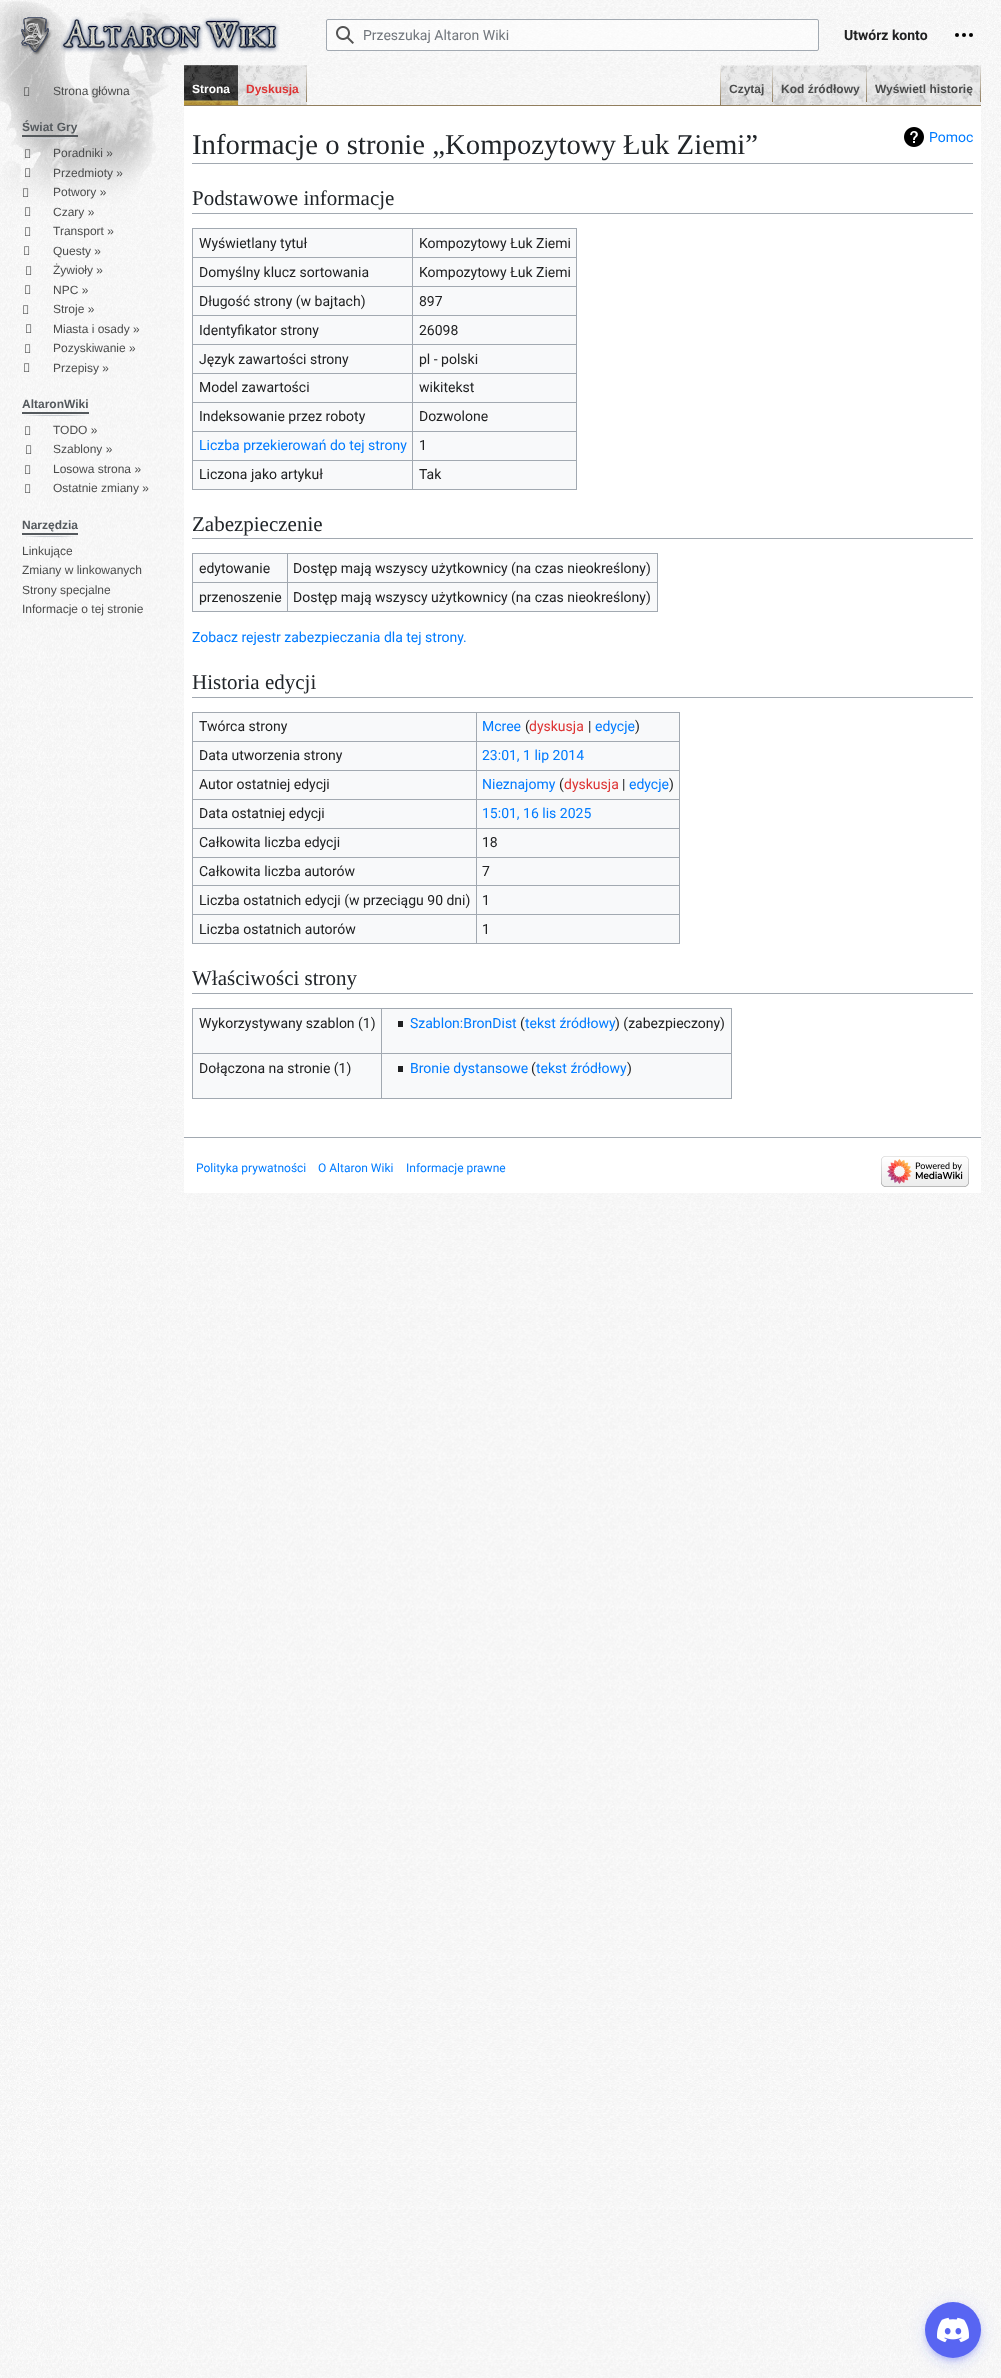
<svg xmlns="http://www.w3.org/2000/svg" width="1001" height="2378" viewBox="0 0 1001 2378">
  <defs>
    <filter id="blur1" x="-50%" y="-200%" width="200%" height="500%"><feGaussianBlur stdDeviation="9"/></filter>
    <filter id="blur2" x="-50%" y="-200%" width="200%" height="500%"><feGaussianBlur stdDeviation="5"/></filter>
    <filter id="blur3" x="-50%" y="-200%" width="200%" height="500%"><feGaussianBlur stdDeviation="2.5"/></filter>
  </defs>
  <rect width="100%" height="100%" fill="#ffffff"/>
  <image x="0" y="0" width="1001" height="2378" href="img1.png"/>
  <image x="21" y="16" width="259" height="40" href="img2.png"/>
  <rect x="326.5" y="19.5" width="492" height="31" rx="1.5" fill="#ffffff" fill-opacity="0.5" stroke="#a2a9b1"/>
  <image x="336" y="26" width="18" height="18" href="img3.png"/>
  <text x="363" y="40" font-family="Roboto" font-size="14" fill="#72777d">Przeszukaj Altaron Wiki</text>
  <text x="844" y="40" font-family="Roboto" font-size="14" font-weight="bold" fill="#202122">Utwórz konto</text>
  <image x="955" y="33" width="18" height="4" href="img4.png"/>
  <image x="24" y="87" width="6" height="9" href="img5.png"/>
  <text x="53" y="95" font-family="Liberation Sans" font-size="12" fill="#4b4c4c">Strona główna</text>
  <text x="22" y="131" font-family="Liberation Sans" font-size="12" font-weight="bold" fill="#54595d">Świat Gry</text>
  <rect x="22" y="135" width="56" height="2" fill="#54595d"/>
  <image x="25" y="149" width="6" height="9" href="img6.png"/>
  <text x="53" y="157" font-family="Liberation Sans" font-size="12" fill="#4b4c4c">Poradniki »</text>
  <image x="25" y="168" width="6" height="9" href="img7.png"/>
  <text x="53" y="177" font-family="Liberation Sans" font-size="12" fill="#4b4c4c">Przedmioty »</text>
  <image x="23" y="188" width="6" height="9" href="img8.png"/>
  <text x="53" y="196" font-family="Liberation Sans" font-size="12" fill="#4b4c4c">Potwory »</text>
  <image x="25" y="207" width="6" height="9" href="img9.png"/>
  <text x="53" y="216" font-family="Liberation Sans" font-size="12" fill="#4b4c4c">Czary »</text>
  <image x="25" y="227" width="6" height="9" href="img10.png"/>
  <text x="53" y="235" font-family="Liberation Sans" font-size="12" fill="#4b4c4c">Transport »</text>
  <image x="24" y="246" width="6" height="9" href="img11.png"/>
  <text x="53" y="255" font-family="Liberation Sans" font-size="12" fill="#4b4c4c">Questy »</text>
  <image x="26" y="266" width="6" height="9" href="img12.png"/>
  <text x="53" y="274" font-family="Liberation Sans" font-size="12" fill="#4b4c4c">Żywioły »</text>
  <image x="25" y="285" width="6" height="9" href="img13.png"/>
  <text x="53" y="294" font-family="Liberation Sans" font-size="12" fill="#4b4c4c">NPC »</text>
  <image x="23" y="305" width="6" height="9" href="img14.png"/>
  <text x="53" y="313" font-family="Liberation Sans" font-size="12" fill="#4b4c4c">Stroje »</text>
  <image x="26" y="324" width="6" height="9" href="img15.png"/>
  <text x="53" y="333" font-family="Liberation Sans" font-size="12" fill="#4b4c4c">Miasta i osady »</text>
  <image x="25" y="344" width="6" height="9" href="img16.png"/>
  <text x="53" y="352" font-family="Liberation Sans" font-size="12" fill="#4b4c4c">Pozyskiwanie »</text>
  <image x="24" y="363" width="6" height="9" href="img17.png"/>
  <text x="53" y="372" font-family="Liberation Sans" font-size="12" fill="#4b4c4c">Przepisy »</text>
  <text x="22" y="408" font-family="Liberation Sans" font-size="12" font-weight="bold" fill="#54595d">AltaronWiki</text>
  <rect x="22" y="412" width="67" height="2" fill="#54595d"/>
  <image x="25" y="426" width="6" height="9" href="img18.png"/>
  <text x="53" y="434" font-family="Liberation Sans" font-size="12" fill="#4b4c4c">TODO »</text>
  <image x="26" y="445" width="6" height="9" href="img19.png"/>
  <text x="53" y="453" font-family="Liberation Sans" font-size="12" fill="#4b4c4c">Szablony »</text>
  <image x="25" y="465" width="6" height="9" href="img20.png"/>
  <text x="53" y="473" font-family="Liberation Sans" font-size="12" fill="#4b4c4c">Losowa strona »</text>
  <image x="25" y="484" width="6" height="9" href="img21.png"/>
  <text x="53" y="492" font-family="Liberation Sans" font-size="12" fill="#4b4c4c">Ostatnie zmiany »</text>
  <text x="22" y="529" font-family="Liberation Sans" font-size="12" font-weight="bold" fill="#54595d">Narzędzia</text>
  <rect x="22" y="533" width="56" height="2" fill="#54595d"/>
  <text x="22" y="555" font-family="Liberation Sans" font-size="12" fill="#4b4c4c">Linkujące</text>
  <text x="22" y="574" font-family="Liberation Sans" font-size="12" fill="#4b4c4c">Zmiany w linkowanych</text>
  <text x="22" y="594" font-family="Liberation Sans" font-size="12" fill="#4b4c4c">Strony specjalne</text>
  <text x="22" y="613" font-family="Liberation Sans" font-size="12" fill="#4b4c4c">Informacje o tej stronie</text>
  <image x="184" y="65" width="54" height="40" href="img22.png"/>
  <text x="192" y="93" font-family="Liberation Sans" font-size="12" font-weight="bold" fill="#ffffff">Strona</text>
  <image x="238" y="65" width="69" height="40" href="img23.png"/>
  <text x="246" y="93" font-family="Liberation Sans" font-size="12" font-weight="bold" fill="#dd3333">Dyskusja</text>
  <image x="721" y="65" width="52" height="40" href="img24.png"/>
  <text x="729" y="93" font-family="Liberation Sans" font-size="12" font-weight="bold" fill="#4b4c4c">Czytaj</text>
  <image x="773" y="65" width="94" height="40" href="img25.png"/>
  <text x="781" y="93" font-family="Liberation Sans" font-size="12" font-weight="bold" fill="#4b4c4c">Kod źródłowy</text>
  <image x="867" y="65" width="114" height="40" href="img26.png"/>
  <text x="875" y="93" font-family="Liberation Sans" font-size="12" font-weight="bold" fill="#4b4c4c">Wyświetl historię</text>
  <rect x="184" y="106" width="797" height="1031" fill="#ffffff"/>
  <rect x="184" y="105" width="797" height="1" fill="#917e5e"/>
  <rect x="192" y="163" width="781" height="1" fill="#a2a9b1"/>
  <text x="192" y="154" font-family="Liberation Serif" font-size="28.75" fill="#212529">Informacje o stronie „Kompozytowy Łuk Ziemi”</text>
  <image x="904" y="127" width="20" height="20" href="img27.png"/>
  <text x="929" y="142" font-family="Roboto" font-size="14" fill="#007bff">Pomoc</text>
  <rect x="192" y="213" width="781" height="1" fill="#a2a9b1"/>
  <text x="192" y="205" font-family="Liberation Serif" font-size="21" fill="#212529">Podstawowe informacje</text>
  <rect x="193" y="229" width="383" height="260" fill="#f8f9fa"/>
  <rect x="192" y="228" width="385" height="1" fill="#a2a9b1"/>
  <rect x="576" y="228" width="1" height="262" fill="#a2a9b1"/>
  <rect x="192" y="489" width="385" height="1" fill="#a2a9b1"/>
  <rect x="192" y="228" width="1" height="262" fill="#a2a9b1"/>
  <text x="199" y="248" font-family="Roboto" font-size="14" fill="#202122">Wyświetlany tytuł</text>
  <rect x="412" y="257" width="165" height="1" fill="#a2a9b1"/>
  <rect x="412" y="286" width="165" height="1" fill="#a2a9b1"/>
  <rect x="412" y="315" width="165" height="1" fill="#a2a9b1"/>
  <rect x="412" y="344" width="165" height="1" fill="#a2a9b1"/>
  <rect x="412" y="373" width="165" height="1" fill="#a2a9b1"/>
  <rect x="412" y="402" width="165" height="1" fill="#a2a9b1"/>
  <rect x="412" y="431" width="165" height="1" fill="#a2a9b1"/>
  <rect x="412" y="460" width="165" height="1" fill="#a2a9b1"/>
  <rect x="412" y="460" width="1" height="30" fill="#a2a9b1"/>
  <rect x="192" y="460" width="221" height="1" fill="#a2a9b1"/>
  <rect x="412" y="431" width="1" height="30" fill="#a2a9b1"/>
  <rect x="192" y="431" width="221" height="1" fill="#a2a9b1"/>
  <rect x="412" y="402" width="1" height="30" fill="#a2a9b1"/>
  <rect x="192" y="402" width="221" height="1" fill="#a2a9b1"/>
  <rect x="412" y="373" width="1" height="30" fill="#a2a9b1"/>
  <rect x="192" y="373" width="221" height="1" fill="#a2a9b1"/>
  <rect x="412" y="344" width="1" height="30" fill="#a2a9b1"/>
  <rect x="192" y="344" width="221" height="1" fill="#a2a9b1"/>
  <rect x="412" y="315" width="1" height="30" fill="#a2a9b1"/>
  <rect x="192" y="315" width="221" height="1" fill="#a2a9b1"/>
  <rect x="412" y="286" width="1" height="30" fill="#a2a9b1"/>
  <rect x="192" y="286" width="221" height="1" fill="#a2a9b1"/>
  <rect x="412" y="257" width="1" height="30" fill="#a2a9b1"/>
  <rect x="192" y="257" width="221" height="1" fill="#a2a9b1"/>
  <rect x="412" y="228" width="1" height="30" fill="#a2a9b1"/>
  <text x="419" y="248" font-family="Roboto" font-size="14" fill="#202122">Kompozytowy Łuk Ziemi</text>
  <text x="199" y="277" font-family="Roboto" font-size="14" fill="#202122">Domyślny klucz sortowania</text>
  <text x="419" y="277" font-family="Roboto" font-size="14" fill="#202122">Kompozytowy Łuk Ziemi</text>
  <text x="199" y="306" font-family="Roboto" font-size="14" fill="#202122">Długość strony (w bajtach)</text>
  <text x="419" y="306" font-family="Roboto" font-size="14" fill="#202122">897</text>
  <text x="199" y="335" font-family="Roboto" font-size="14" fill="#202122">Identyfikator strony</text>
  <text x="419" y="335" font-family="Roboto" font-size="14" fill="#202122">26098</text>
  <text x="199" y="364" font-family="Roboto" font-size="14" fill="#202122">Język zawartości strony</text>
  <text x="419" y="364" font-family="Roboto" font-size="14" fill="#202122">pl - polski</text>
  <text x="199" y="392" font-family="Roboto" font-size="14" fill="#202122">Model zawartości</text>
  <text x="419" y="392" font-family="Roboto" font-size="14" fill="#202122">wikitekst</text>
  <text x="199" y="421" font-family="Roboto" font-size="14" fill="#202122">Indeksowanie przez roboty</text>
  <text x="419" y="421" font-family="Roboto" font-size="14" fill="#202122">Dozwolone</text>
  <text x="199" y="450" font-family="Roboto" font-size="14" fill="#007bff">Liczba przekierowań do tej strony</text>
  <text x="419" y="450" font-family="Roboto" font-size="14" fill="#202122">1</text>
  <text x="199" y="479" font-family="Roboto" font-size="14" fill="#202122">Liczona jako artykuł</text>
  <text x="419" y="479" font-family="Roboto" font-size="14" fill="#202122">Tak</text>
  <rect x="192" y="538" width="781" height="1" fill="#a2a9b1"/>
  <text x="192" y="531" font-family="Liberation Serif" font-size="21" fill="#212529">Zabezpieczenie</text>
  <rect x="193" y="554" width="464" height="57" fill="#f8f9fa"/>
  <rect x="192" y="553" width="466" height="1" fill="#a2a9b1"/>
  <rect x="657" y="553" width="1" height="59" fill="#a2a9b1"/>
  <rect x="192" y="611" width="466" height="1" fill="#a2a9b1"/>
  <rect x="192" y="553" width="1" height="59" fill="#a2a9b1"/>
  <text x="199" y="573" font-family="Roboto" font-size="14" fill="#202122">edytowanie</text>
  <rect x="287" y="582" width="371" height="1" fill="#a2a9b1"/>
  <rect x="287" y="582" width="1" height="30" fill="#a2a9b1"/>
  <rect x="192" y="582" width="96" height="1" fill="#a2a9b1"/>
  <rect x="287" y="553" width="1" height="30" fill="#a2a9b1"/>
  <text x="293" y="573" font-family="Roboto" font-size="14" fill="#202122">Dostęp mają wszyscy użytkownicy (na czas nieokreślony)</text>
  <text x="199" y="602" font-family="Roboto" font-size="14" fill="#202122">przenoszenie</text>
  <text x="293" y="602" font-family="Roboto" font-size="14" fill="#202122">Dostęp mają wszyscy użytkownicy (na czas nieokreślony)</text>
  <text x="192" y="642" font-family="Roboto" font-size="14" fill="#007bff">Zobacz rejestr zabezpieczania dla tej strony.</text>
  <rect x="192" y="697" width="781" height="1" fill="#a2a9b1"/>
  <text x="192" y="689" font-family="Liberation Serif" font-size="21" fill="#212529">Historia edycji</text>
  <rect x="193" y="713" width="486" height="230" fill="#f8f9fa"/>
  <rect x="192" y="712" width="488" height="1" fill="#a2a9b1"/>
  <rect x="679" y="712" width="1" height="232" fill="#a2a9b1"/>
  <rect x="192" y="943" width="488" height="1" fill="#a2a9b1"/>
  <rect x="192" y="712" width="1" height="232" fill="#a2a9b1"/>
  <text x="199" y="731" font-family="Roboto" font-size="14" fill="#202122">Twórca strony</text>
  <rect x="476" y="741" width="204" height="1" fill="#a2a9b1"/>
  <rect x="476" y="770" width="204" height="1" fill="#a2a9b1"/>
  <rect x="476" y="799" width="204" height="1" fill="#a2a9b1"/>
  <rect x="476" y="828" width="204" height="1" fill="#a2a9b1"/>
  <rect x="476" y="857" width="204" height="1" fill="#a2a9b1"/>
  <rect x="476" y="885" width="204" height="1" fill="#a2a9b1"/>
  <rect x="476" y="914" width="204" height="1" fill="#a2a9b1"/>
  <rect x="476" y="914" width="1" height="30" fill="#a2a9b1"/>
  <rect x="192" y="914" width="285" height="1" fill="#a2a9b1"/>
  <rect x="476" y="885" width="1" height="30" fill="#a2a9b1"/>
  <rect x="192" y="885" width="285" height="1" fill="#a2a9b1"/>
  <rect x="476" y="857" width="1" height="29" fill="#a2a9b1"/>
  <rect x="192" y="857" width="285" height="1" fill="#a2a9b1"/>
  <rect x="476" y="828" width="1" height="30" fill="#a2a9b1"/>
  <rect x="192" y="828" width="285" height="1" fill="#a2a9b1"/>
  <rect x="476" y="799" width="1" height="30" fill="#a2a9b1"/>
  <rect x="192" y="799" width="285" height="1" fill="#a2a9b1"/>
  <rect x="476" y="770" width="1" height="30" fill="#a2a9b1"/>
  <rect x="192" y="770" width="285" height="1" fill="#a2a9b1"/>
  <rect x="476" y="741" width="1" height="30" fill="#a2a9b1"/>
  <rect x="192" y="741" width="285" height="1" fill="#a2a9b1"/>
  <rect x="476" y="712" width="1" height="30" fill="#a2a9b1"/>
  <text x="482" y="731" font-family="Roboto" font-size="14" fill="#007bff">Mcree</text>
  <text x="525" y="731" font-family="Roboto" font-size="14" fill="#202122">(</text>
  <text x="529" y="731" font-family="Roboto" font-size="14" fill="#dd3333">dyskusja</text>
  <text x="588" y="731" font-family="Roboto" font-size="14" fill="#202122">|</text>
  <text x="595" y="731" font-family="Roboto" font-size="14" fill="#007bff">edycje</text>
  <text x="635" y="731" font-family="Roboto" font-size="14" fill="#202122">)</text>
  <text x="199" y="760" font-family="Roboto" font-size="14" fill="#202122">Data utworzenia strony</text>
  <text x="482" y="760" font-family="Roboto" font-size="14" fill="#007bff">23:01, 1 lip 2014</text>
  <text x="199" y="789" font-family="Roboto" font-size="14" fill="#202122">Autor ostatniej edycji</text>
  <text x="482" y="789" font-family="Roboto" font-size="14" fill="#007bff">Nieznajomy</text>
  <text x="559" y="789" font-family="Roboto" font-size="14" fill="#202122">(</text>
  <text x="564" y="789" font-family="Roboto" font-size="14" fill="#dd3333">dyskusja</text>
  <text x="622" y="789" font-family="Roboto" font-size="14" fill="#202122">|</text>
  <text x="629" y="789" font-family="Roboto" font-size="14" fill="#007bff">edycje</text>
  <text x="669" y="789" font-family="Roboto" font-size="14" fill="#202122">)</text>
  <text x="199" y="818" font-family="Roboto" font-size="14" fill="#202122">Data ostatniej edycji</text>
  <text x="482" y="818" font-family="Roboto" font-size="14" fill="#007bff">15:01, 16 lis 2025</text>
  <text x="199" y="847" font-family="Roboto" font-size="14" fill="#202122">Całkowita liczba edycji</text>
  <text x="482" y="847" font-family="Roboto" font-size="14" fill="#202122">18</text>
  <text x="199" y="876" font-family="Roboto" font-size="14" fill="#202122">Całkowita liczba autorów</text>
  <text x="482" y="876" font-family="Roboto" font-size="14" fill="#202122">7</text>
  <text x="199" y="905" font-family="Roboto" font-size="14" fill="#202122">Liczba ostatnich edycji (w przeciągu 90 dni)</text>
  <text x="482" y="905" font-family="Roboto" font-size="14" fill="#202122">1</text>
  <text x="199" y="934" font-family="Roboto" font-size="14" fill="#202122">Liczba ostatnich autorów</text>
  <text x="482" y="934" font-family="Roboto" font-size="14" fill="#202122">1</text>
  <rect x="192" y="993" width="781" height="1" fill="#a2a9b1"/>
  <text x="192" y="985" font-family="Liberation Serif" font-size="21" fill="#212529">Właściwości strony</text>
  <rect x="193" y="1009" width="538" height="89" fill="#f8f9fa"/>
  <rect x="192" y="1008" width="540" height="1" fill="#a2a9b1"/>
  <rect x="731" y="1008" width="1" height="91" fill="#a2a9b1"/>
  <rect x="192" y="1098" width="540" height="1" fill="#a2a9b1"/>
  <rect x="192" y="1008" width="1" height="91" fill="#a2a9b1"/>
  <text x="199" y="1028" font-family="Roboto" font-size="14" fill="#202122">Wykorzystywany szablon (1)</text>
  <rect x="381" y="1053" width="351" height="1" fill="#a2a9b1"/>
  <rect x="381" y="1053" width="1" height="46" fill="#a2a9b1"/>
  <rect x="192" y="1053" width="190" height="1" fill="#a2a9b1"/>
  <rect x="381" y="1008" width="1" height="46" fill="#a2a9b1"/>
  <rect x="398" y="1021" width="5" height="6" fill="#202122"/>
  <text x="410" y="1028" font-family="Roboto" font-size="14" fill="#007bff">Szablon:BronDist</text>
  <text x="520" y="1028" font-family="Roboto" font-size="14" fill="#202122">(</text>
  <text x="525" y="1028" font-family="Roboto" font-size="14" fill="#007bff">tekst źródłowy</text>
  <text x="615" y="1028" font-family="Roboto" font-size="14" fill="#202122">) (zabezpieczony)</text>
  <text x="199" y="1073" font-family="Roboto" font-size="14" fill="#202122">Dołączona na stronie (1)</text>
  <rect x="398" y="1066" width="5" height="6" fill="#202122"/>
  <text x="410" y="1073" font-family="Roboto" font-size="14" fill="#007bff">Bronie dystansowe</text>
  <text x="531" y="1073" font-family="Roboto" font-size="14" fill="#202122">(</text>
  <text x="536" y="1073" font-family="Roboto" font-size="14" fill="#007bff">tekst źródłowy</text>
  <text x="627" y="1073" font-family="Roboto" font-size="14" fill="#202122">)</text>
  <rect x="184" y="1138" width="797" height="55" fill="#ffffff"/>
  <rect x="184" y="1137" width="797" height="1" fill="#a2a9b1"/>
  <text x="196" y="1172" font-family="Roboto" font-size="12" fill="#007bff">Polityka prywatności</text>
  <text x="318" y="1172" font-family="Roboto" font-size="12" fill="#007bff">O Altaron Wiki</text>
  <text x="406" y="1172" font-family="Roboto" font-size="12" fill="#007bff">Informacje prawne</text>
  <image x="881" y="1156" width="88" height="31" href="img28.png"/>
  <rect x="925" y="2303" width="56" height="56" rx="28" fill="#5865f2" fill-opacity="0.12" filter="url(#blur1)"/>
  <rect x="925" y="2308" width="56" height="56" rx="28" fill="#5865f2" fill-opacity="0.14" filter="url(#blur2)"/>
  <rect x="926" y="2306" width="54" height="54" rx="27" fill="#5865f2" fill-opacity="0.3" filter="url(#blur3)"/>
  <circle cx="953" cy="2330" r="28" fill="#5865f2"/>
  <image x="937" y="2317" width="32" height="26" href="img29.png"/>
</svg>
